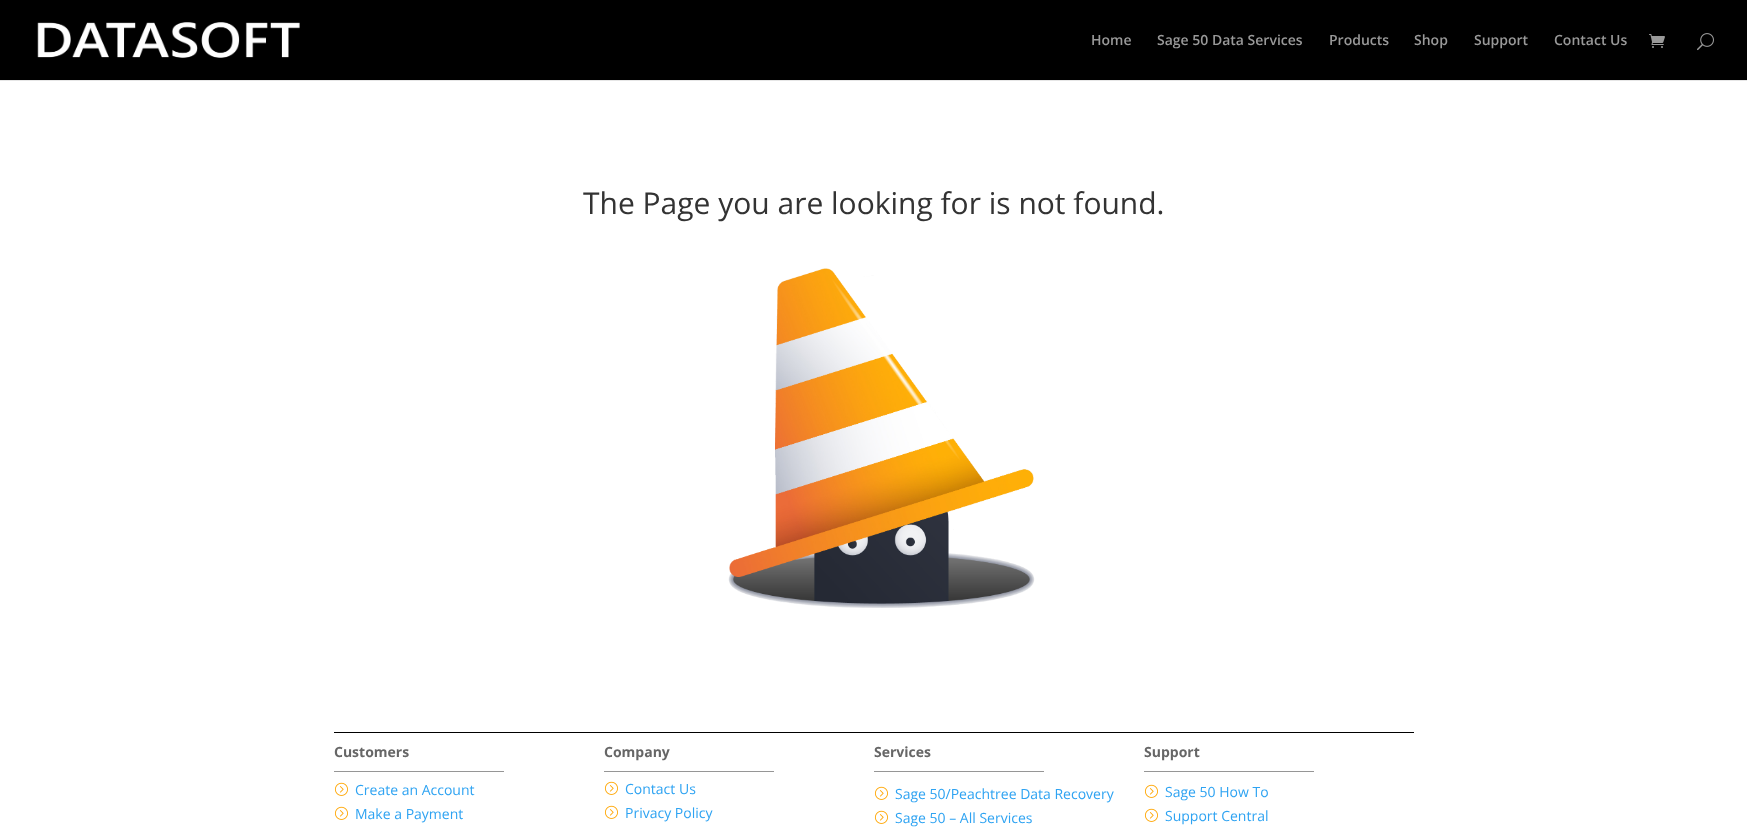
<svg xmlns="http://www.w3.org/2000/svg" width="1747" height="829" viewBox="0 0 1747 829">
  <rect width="100%" height="100%" fill="#ffffff"/>
  <rect x="0" y="80" width="1747" height="1" fill="#e6e6e6"/>
  <rect x="0" y="0" width="1747" height="80" fill="#000000"/>
  <image x="37" y="22" width="263" height="36" href="img1.png"/>
  <text x="1091" y="45" font-family="Open Sans" font-size="14" font-weight="600" fill="#999999">Home</text>
  <text x="1157" y="45" font-family="Open Sans" font-size="14" font-weight="600" fill="#999999">Sage 50 Data Services</text>
  <text x="1329" y="45" font-family="Open Sans" font-size="14" font-weight="600" fill="#999999">Products</text>
  <text x="1414" y="45" font-family="Open Sans" font-size="14" font-weight="600" fill="#999999">Shop</text>
  <text x="1474" y="45" font-family="Open Sans" font-size="14" font-weight="600" fill="#999999">Support</text>
  <text x="1554" y="45" font-family="Open Sans" font-size="14" font-weight="600" fill="#999999">Contact Us</text>
  <image x="1649" y="34" width="16" height="14" href="img2.png"/>
  <image x="1697" y="33" width="17" height="18" href="img3.png"/>
  <text x="583" y="214" font-family="Open Sans" font-size="30" fill="#333333">The Page you are looking for is not found.</text>
  <image x="728" y="268" width="307" height="340" href="img4.png"/>
  <rect x="334" y="732" width="1080" height="1" fill="#000000"/>
  <text x="334" y="757" font-family="Open Sans" font-size="14" font-weight="bold" fill="#666666">Customers</text>
  <rect x="334" y="771" width="170" height="1" fill="#969696"/>
  <image x="334" y="782" width="14" height="14" href="img5.png"/>
  <text x="355" y="795" font-family="Open Sans" font-size="14" fill="#2ea3f2">Create an Account</text>
  <image x="334" y="806" width="14" height="14" href="img5.png"/>
  <text x="355" y="819" font-family="Open Sans" font-size="14" fill="#2ea3f2">Make a Payment</text>
  <text x="604" y="757" font-family="Open Sans" font-size="14" font-weight="bold" fill="#666666">Company</text>
  <rect x="604" y="771" width="170" height="1" fill="#969696"/>
  <image x="604" y="781" width="14" height="14" href="img5.png"/>
  <text x="625" y="794" font-family="Open Sans" font-size="14" fill="#2ea3f2">Contact Us</text>
  <image x="604" y="805" width="14" height="14" href="img5.png"/>
  <text x="625" y="818" font-family="Open Sans" font-size="14" fill="#2ea3f2">Privacy Policy</text>
  <text x="874" y="757" font-family="Open Sans" font-size="14" font-weight="bold" fill="#666666">Services</text>
  <rect x="874" y="771" width="170" height="1" fill="#969696"/>
  <image x="874" y="786" width="14" height="14" href="img5.png"/>
  <text x="895" y="799" font-family="Open Sans" font-size="14" fill="#2ea3f2">Sage 50/Peachtree Data Recovery</text>
  <image x="874" y="810" width="14" height="14" href="img5.png"/>
  <text x="895" y="823" font-family="Open Sans" font-size="14" fill="#2ea3f2">Sage 50 – All Services</text>
  <text x="1144" y="757" font-family="Open Sans" font-size="14" font-weight="bold" fill="#666666">Support</text>
  <rect x="1144" y="771" width="170" height="1" fill="#969696"/>
  <image x="1144" y="784" width="14" height="14" href="img5.png"/>
  <text x="1165" y="797" font-family="Open Sans" font-size="14" fill="#2ea3f2">Sage 50 How To</text>
  <image x="1144" y="808" width="14" height="14" href="img5.png"/>
  <text x="1165" y="821" font-family="Open Sans" font-size="14" fill="#2ea3f2">Support Central</text>
</svg>
